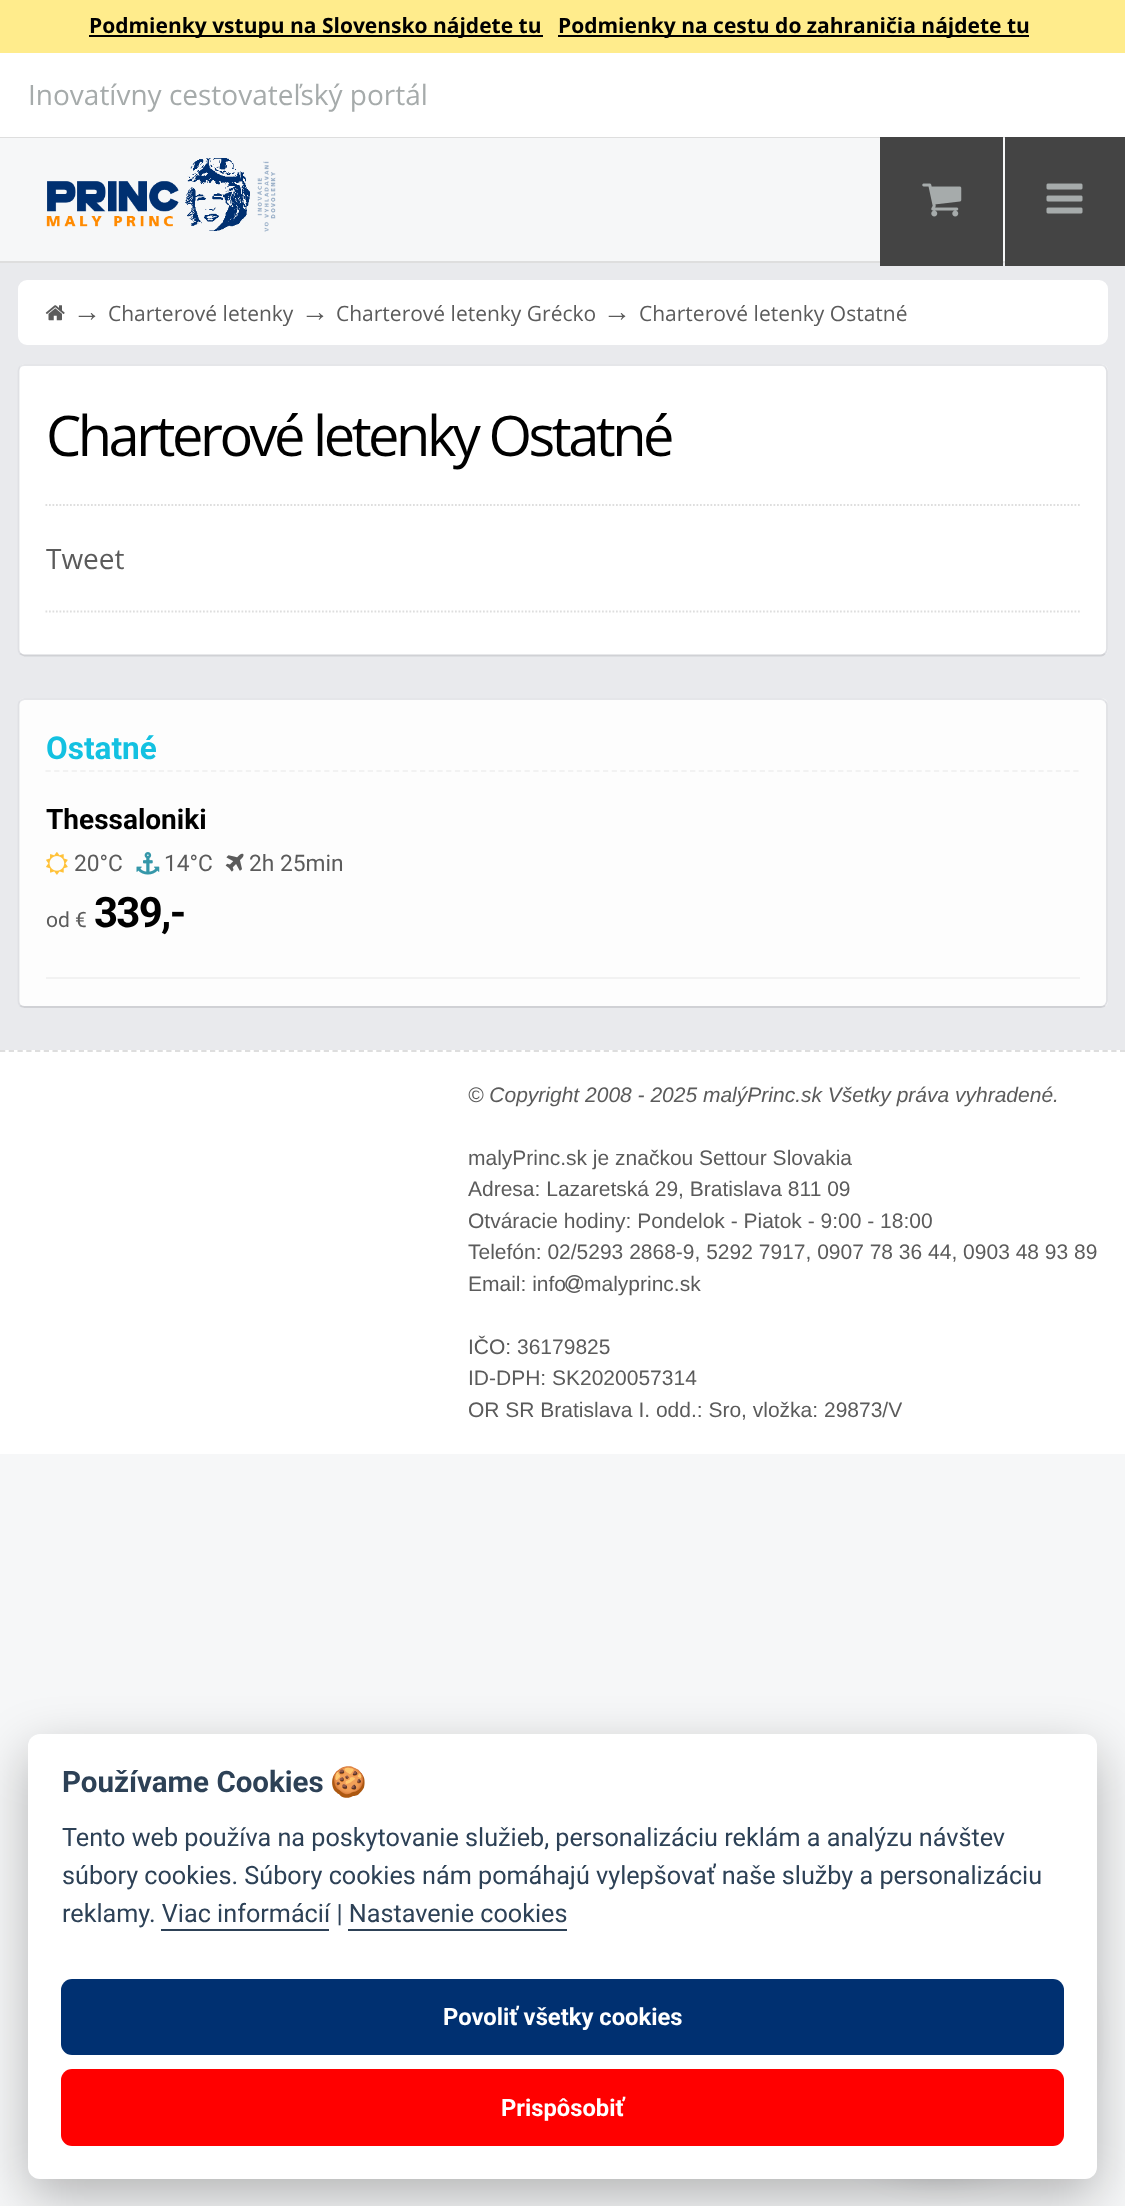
<svg xmlns="http://www.w3.org/2000/svg" width="1125" height="2206" viewBox="0 0 1125 2206">
  <defs>
    <filter id="blur1" x="-50%" y="-200%" width="200%" height="500%"><feGaussianBlur stdDeviation="17.5"/></filter>
    <filter id="blur2" x="-50%" y="-200%" width="200%" height="500%"><feGaussianBlur stdDeviation="26"/></filter>
  </defs>
  <rect width="100%" height="100%" fill="#f6f7f8"/>
  <rect x="0" y="53" width="1125" height="84" fill="#ffffff"/>
  <rect x="0" y="0" width="1125" height="53" fill="#ffec8c"/>
  <rect x="89" y="35" width="454" height="2" fill="#000000"/>
  <text x="89" y="33" font-family="Open Sans" font-size="21" font-weight="bold" fill="#000000">Podmienky vstupu na Slovensko nájdete tu</text>
  <rect x="558" y="35" width="471" height="2" fill="#000000"/>
  <text x="558" y="33" font-family="Open Sans" font-size="21" font-weight="bold" fill="#000000">Podmienky na cestu do zahraničia nájdete tu</text>
  <rect x="0" y="137" width="1005" height="1" fill="#dedede"/>
  <text x="28" y="105" font-family="Open Sans" font-size="28" fill="#a6abab">Inovatívny cestovateľský portál</text>
  <rect x="0" y="261" width="1005" height="2" fill="#dedede"/>
  <image x="46" y="158" width="230" height="74" href="img1.png"/>
  <rect x="0" y="263" width="1125" height="787" fill="#e9eaed"/>
  <rect x="880" y="137" width="123" height="129" fill="#444444"/>
  <image x="922" y="183" width="40" height="34" href="img2.png"/>
  <rect x="1005" y="137" width="120" height="129" fill="#444444"/>
  <image x="1046" y="183" width="37" height="31" href="img3.png"/>
  <rect x="19" y="281" width="1088" height="63" rx="8" fill="#ffffff" stroke="#ffffff" stroke-width="2"/>
  <image x="45" y="305" width="20" height="16" href="img4.png"/>
  <text x="73" y="321" font-family="Liberation Serif" font-size="28" fill="#5b5b5b">→</text>
  <text x="108" y="321" font-family="Open Sans" font-size="21" fill="#5b5b5b">Charterové letenky</text>
  <text x="301" y="321" font-family="Liberation Serif" font-size="28" fill="#5b5b5b">→</text>
  <text x="336" y="321" font-family="Open Sans" font-size="21" fill="#5b5b5b">Charterové letenky Grécko</text>
  <text x="603" y="321" font-family="Liberation Serif" font-size="28" fill="#5b5b5b">→</text>
  <text x="639" y="321" font-family="Open Sans" font-size="21" fill="#5b5b5b">Charterové letenky Ostatné</text>
  <rect x="18" y="364" width="1090" height="292" rx="7" fill="#ffffff"/>
  <path d="M20 366.5C21.5 365.5 23 365 24.5 365H1101C1102.5 365 1104 365.5 1105 366.5" fill="none" stroke="#e5e6e9" stroke-width="1.8"/>
  <path d="M1105 366.5C1106 368 1107 369.5 1107 371V649C1107 651 1106 652.5 1105 653.5" fill="none" stroke="#dfe0e4" stroke-width="1.8"/>
  <path d="M1105 653.5C1104 654.5 1102.5 655.5 1101 655.5H24.5C23 655.5 21.5 654.5 20 653.5" fill="none" stroke="#d0d1d5" stroke-width="1.8"/>
  <path d="M20 653.5C19 652.5 18.5 651 18.5 649V371C18.5 369.5 19 368 20 366.5" fill="none" stroke="#dfe0e4" stroke-width="1.8"/>
  <text x="46" y="456" font-family="Open Sans" font-size="56" letter-spacing="-3.5" fill="#000000">Charterové letenky Ostatné</text>
  <path d="M45.5 505H1080" fill="none" stroke="#dedede" stroke-width="1.8" stroke-dasharray="1.75 1.75"/>
  <path d="M45.5 611.5H1080" fill="none" stroke="#dedede" stroke-width="1.8" stroke-dasharray="1.75 1.75"/>
  <text x="46" y="569" font-family="Open Sans" font-size="28" fill="#5b5b5b">Tweet</text>
  <rect x="18" y="698" width="1090" height="310" rx="7" fill="#fdfdfd"/>
  <path d="M20 701C21.5 700 23 699 24.5 699H1101C1102.5 699 1104 700 1105 701" fill="none" stroke="#e5e6e9" stroke-width="1.8"/>
  <path d="M1105 701C1106 702 1107 703.5 1107 705V1001C1107 1002.5 1106 1004 1105 1005.5" fill="none" stroke="#dfe0e4" stroke-width="1.8"/>
  <path d="M1105 1005.5C1104 1006.5 1102.5 1007 1101 1007H24.5C23 1007 21.5 1006.5 20 1005.5" fill="none" stroke="#d0d1d5" stroke-width="1.8"/>
  <path d="M20 1005.5C19 1004 18.5 1002.5 18.5 1001V705C18.5 703.5 19 702 20 701" fill="none" stroke="#dfe0e4" stroke-width="1.8"/>
  <path d="M45.5 771H1080" fill="none" stroke="#f2f2f2" stroke-width="1.8" stroke-dasharray="5.25 3.46"/>
  <text x="46" y="759" font-family="Roboto" font-size="31.5" font-weight="bold" fill="#13c1e1">Ostatné</text>
  <rect x="46" y="977" width="1034" height="2" fill="#f2f2f2"/>
  <text x="46" y="829" font-family="Roboto" font-size="28" font-weight="bold" fill="#000000">Thessaloniki</text>
  <image x="46" y="852" width="22" height="23" href="img5.png"/>
  <text x="74" y="871" font-family="Roboto" font-size="22.75" fill="#5b5b5b">20°C</text>
  <image x="136" y="852" width="24" height="23" href="img6.png"/>
  <text x="164" y="871" font-family="Roboto" font-size="22.75" fill="#5b5b5b">14°C</text>
  <image x="225" y="853" width="19" height="19" href="img7.png"/>
  <text x="249" y="871" font-family="Roboto" font-size="22.75" fill="#5b5b5b">2h 25min</text>
  <text x="46" y="927" font-family="Roboto" font-size="21" fill="#5b5b5b">od €</text>
  <text x="94" y="927" font-family="Roboto" font-size="42" font-weight="bold" letter-spacing="-1.75" fill="#000000">339,-</text>
  <rect x="0" y="1050" width="1125" height="404" fill="#ffffff"/>
  <path d="M0 1051H1125" fill="none" stroke="#dedede" stroke-width="1.8" stroke-dasharray="5.25 3.5"/>
  <text x="468" y="1102" font-family="Liberation Sans" font-size="21" font-style="italic" fill="#5b5b5b">© Copyright 2008 - 2025 malýPrinc.sk Všetky práva vyhradené.</text>
  <text x="468" y="1165" font-family="Liberation Sans" font-size="21" fill="#5b5b5b">malyPrinc.sk je značkou Settour Slovakia</text>
  <text x="468" y="1196" font-family="Liberation Sans" font-size="21" fill="#5b5b5b">Adresa: Lazaretská 29, Bratislava 811 09</text>
  <text x="468" y="1228" font-family="Liberation Sans" font-size="21" fill="#5b5b5b">Otváracie hodiny: Pondelok - Piatok - 9:00 - 18:00</text>
  <text x="468" y="1259" font-family="Liberation Sans" font-size="21" fill="#5b5b5b">Telefón: 02/5293 2868-9, 5292 7917, 0907 78 36 44, 0903 48 93 89</text>
  <text x="468" y="1291" font-family="Liberation Sans" font-size="21" fill="#5b5b5b">Email: info</text>
  <image x="565" y="1275" width="19" height="18" href="img8.png"/>
  <text x="584" y="1291" font-family="Liberation Sans" font-size="21" fill="#5b5b5b">malyprinc.sk</text>
  <text x="468" y="1354" font-family="Liberation Sans" font-size="21" fill="#5b5b5b">IČO: 36179825</text>
  <text x="468" y="1385" font-family="Liberation Sans" font-size="21" fill="#5b5b5b">ID-DPH: SK2020057314</text>
  <text x="468" y="1417" font-family="Liberation Sans" font-size="21" fill="#5b5b5b">OR SR Bratislava I. odd.: Sro, vložka: 29873/V</text>
  <rect x="810" y="1906" width="263" height="262" rx="131" fill="#000000" fill-opacity="0.24" filter="url(#blur1)"/>
  <rect x="28" y="1752" width="1069" height="444" rx="12" fill="#020203" fill-opacity="0.28" filter="url(#blur2)"/>
  <rect x="28" y="1734" width="1069" height="445" rx="12" fill="#ffffff"/>
  <text x="62" y="1792" font-family="Roboto" font-size="29.5" font-weight="bold" fill="#2d4156">Používame Cookies</text>
  <text x="330" y="1792" font-family="Noto Color Emoji" font-size="29.5" font-weight="bold" fill="#2d4156">🍪</text>
  <text x="62" y="1846" font-family="Roboto" font-size="25.2" fill="#2d4156">Tento web používa na poskytovanie služieb, personalizáciu reklám a analýzu návštev</text>
  <text x="62" y="1884" font-family="Roboto" font-size="25.2" fill="#2d4156">súbory cookies. Súbory cookies nám pomáhajú vylepšovať naše služby a personalizáciu</text>
  <text x="62" y="1922" font-family="Roboto" font-size="25.2" fill="#2d4156">reklamy. Viac informácií | Nastavenie cookies</text>
  <rect x="161" y="1929" width="168" height="2" fill="#2d4156"/>
  <rect x="348" y="1929" width="219" height="2" fill="#2d4156"/>
  <rect x="61" y="1979" width="1003" height="76" rx="11" fill="#003071"/>
  <text x="443" y="2025" font-family="Roboto" font-size="23.75" font-weight="bold" fill="#ffffff">Povoliť všetky cookies</text>
  <rect x="61" y="2069" width="1003" height="77" rx="11" fill="#ff0000"/>
  <text x="501" y="2116" font-family="Roboto" font-size="23.75" font-weight="bold" fill="#ffffff">Prispôsobiť</text>
</svg>
